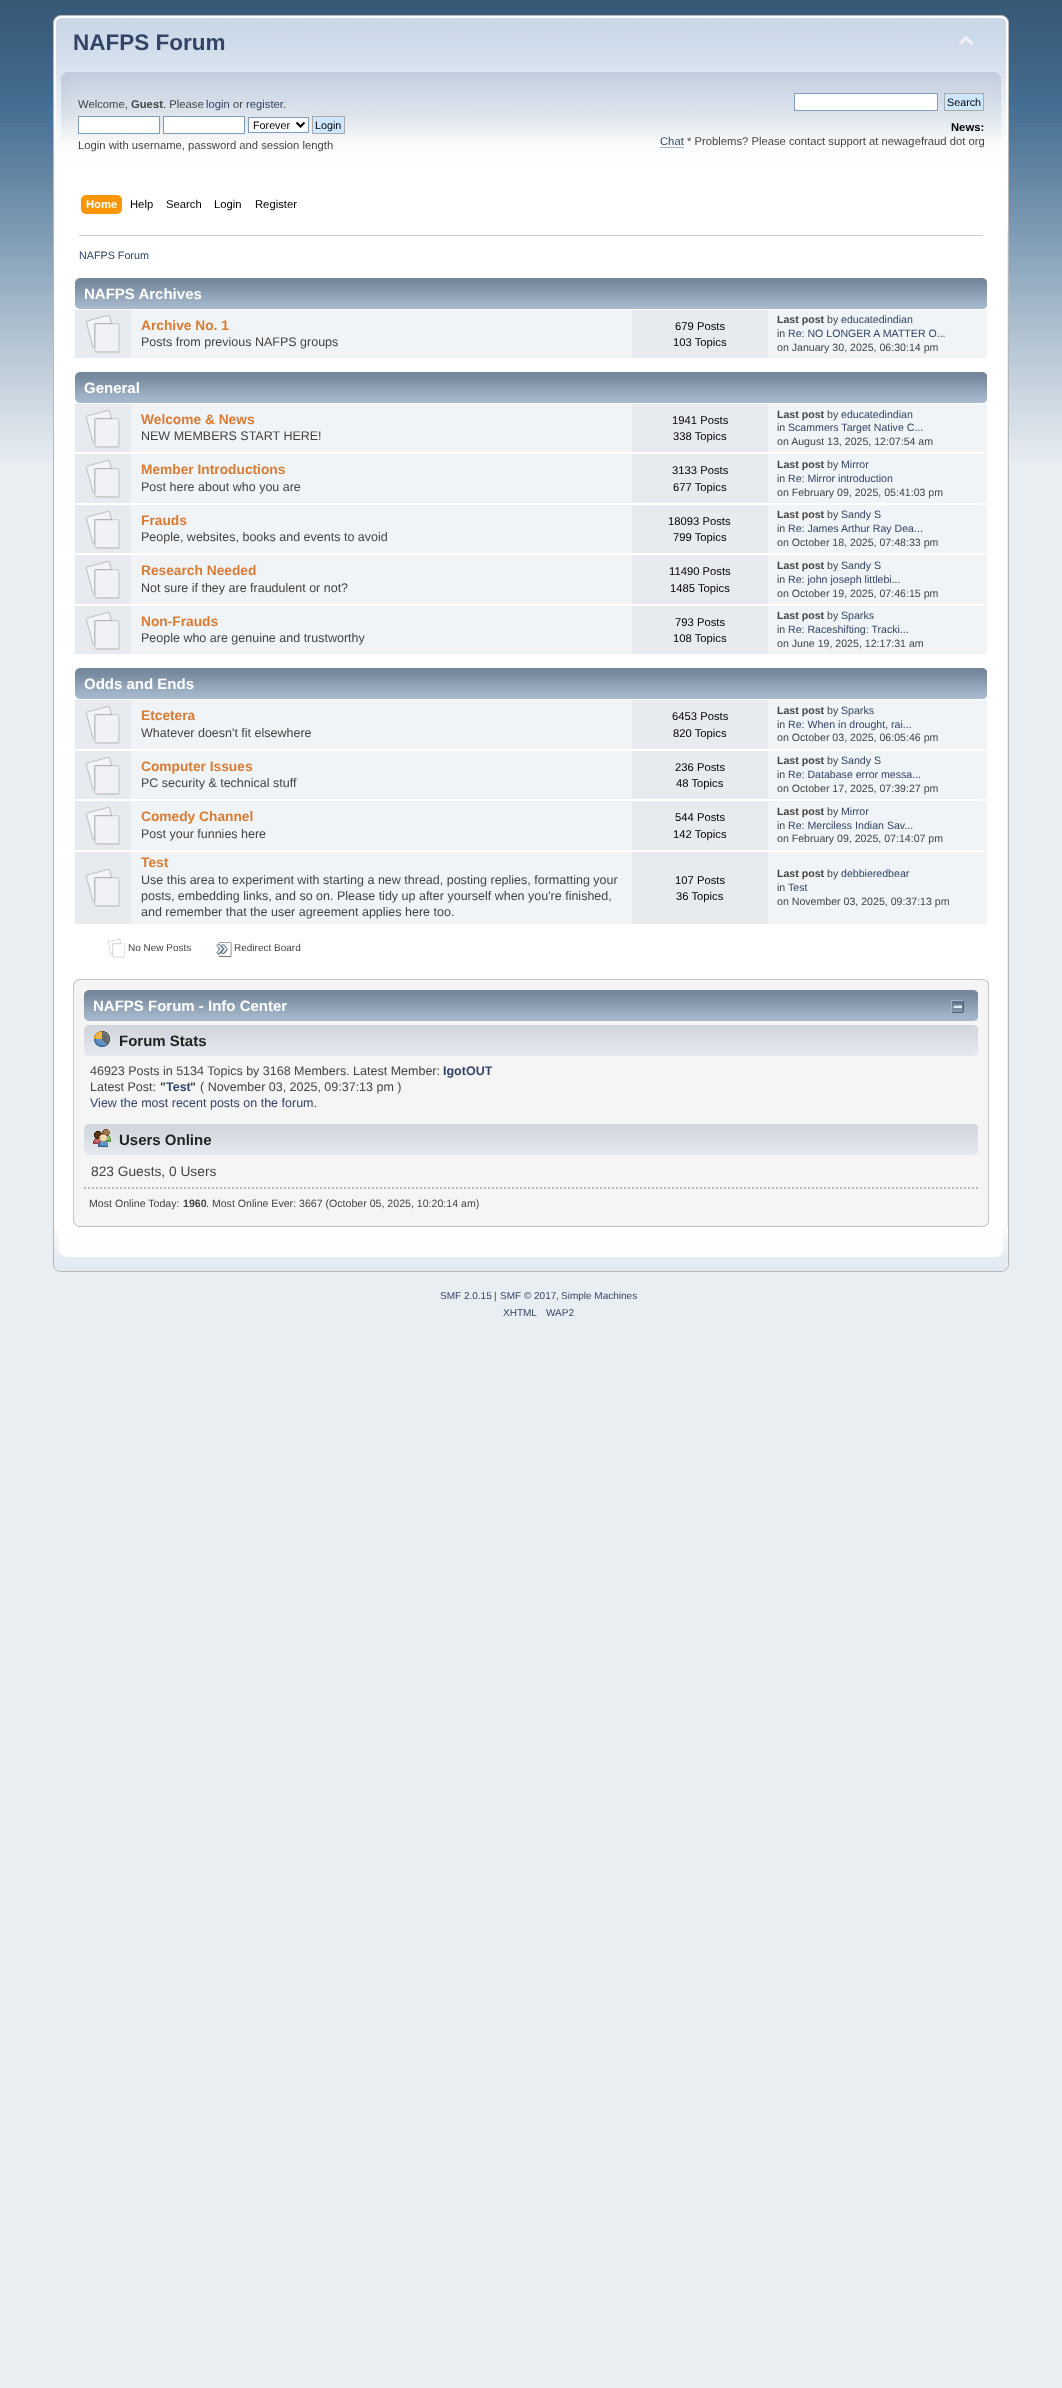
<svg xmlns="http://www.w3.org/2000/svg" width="1062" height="2388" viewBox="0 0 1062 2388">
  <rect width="100%" height="100%" fill="#e9eef2"/>
  <image x="0" y="0" width="1062" height="462" href="img1.png"/>
  <image x="53" y="15" width="942" height="214" href="img2.png"/>
  <image x="995" y="15" width="14" height="214" href="img3.png"/>
  <text x="73" y="50" font-family="Liberation Sans" font-size="22.5" font-weight="bold" fill="#334466">NAFPS Forum</text>
  <image x="959" y="35" width="15" height="12" href="img4.png"/>
  <text x="78" y="108" font-family="Liberation Sans" font-size="11.25" fill="#444444">Welcome,</text>
  <text x="131" y="108" font-family="Liberation Sans" font-size="11.25" font-weight="bold" fill="#444444">Guest</text>
  <text x="163" y="108" font-family="Liberation Sans" font-size="11.25" fill="#444444">. Please</text>
  <text x="206" y="108" font-family="Liberation Sans" font-size="11.25" fill="#334466">login</text>
  <text x="233" y="108" font-family="Liberation Sans" font-size="11.25" fill="#444444">or</text>
  <text x="246" y="108" font-family="Liberation Sans" font-size="11.25" fill="#334466">register</text>
  <text x="283" y="108" font-family="Liberation Sans" font-size="11.25" fill="#444444">.</text>
  <rect x="78.5" y="116.5" width="81" height="17" fill="#ffffff" stroke="#7f9db9"/>
  <rect x="163.5" y="116.5" width="81" height="17" fill="#ffffff" stroke="#7f9db9"/>
  <rect x="248.5" y="117.5" width="60" height="15" fill="#ffffff" stroke="#7f9db9"/>
  <path d="M296.5 122.5L300.5 126.5L304.5 122.5" fill="none" stroke="#000000" stroke-width="2"/>
  <text x="253" y="129" font-family="Liberation Sans" font-size="10.75" fill="#000000">Forever</text>
  <rect x="312.5" y="116.5" width="32" height="17" fill="#cde7ff" stroke="#aaaaaa"/>
  <text x="315" y="129" font-family="Liberation Sans" font-size="10.75" fill="#000000">Login</text>
  <text x="78" y="149" font-family="Liberation Sans" font-size="11.25" fill="#444444">Login with username, password and session length</text>
  <rect x="794.5" y="93.5" width="143" height="17" fill="#ffffff" stroke="#7f9db9"/>
  <rect x="944.5" y="93.5" width="39" height="17" fill="#cde7ff" stroke="#aaaaaa"/>
  <text x="947" y="106" font-family="Liberation Sans" font-size="10.75" fill="#000000">Search</text>
  <text x="951" y="131" font-family="Liberation Sans" font-size="11.25" font-weight="bold" fill="#000000">News:</text>
  <text x="660" y="145" font-family="Liberation Sans" font-size="11.25" fill="#334466">Chat</text>
  <rect x="660" y="147" width="24" height="1" fill="#a8b6cf"/>
  <text x="687" y="145" font-family="Liberation Sans" font-size="11.25" fill="#444444">* Problems? Please contact support at newagefraud dot org</text>
  <image x="86" y="195" width="36" height="19" href="img5.png"/>
  <image x="81" y="195" width="5" height="19" href="img6.png"/>
  <text x="86" y="208" font-family="Liberation Sans" font-size="11.25" font-weight="bold" fill="#ffffff">Home</text>
  <text x="130" y="208" font-family="Liberation Sans" font-size="11.25" fill="#000000">Help</text>
  <text x="166" y="208" font-family="Liberation Sans" font-size="11.25" fill="#000000">Search</text>
  <text x="214" y="208" font-family="Liberation Sans" font-size="11.25" fill="#000000">Login</text>
  <text x="255" y="208" font-family="Liberation Sans" font-size="11.25" fill="#000000">Register</text>
  <rect x="54" y="229" width="953" height="999" fill="#ffffff"/>
  <rect x="53" y="229" width="1" height="999" fill="#b7b7b7"/>
  <image x="1007" y="229" width="2" height="999" href="img7.png"/>
  <rect x="79" y="235" width="904" height="1" fill="#cccccc"/>
  <text x="79" y="259" font-family="Liberation Sans" font-size="10.75" fill="#334466">NAFPS Forum</text>
  <image x="75" y="278" width="907" height="31" href="img8.png"/>
  <image x="982" y="278" width="5" height="31" href="img9.png"/>
  <text x="84" y="299" font-family="Liberation Sans" font-size="15" font-weight="bold" fill="#ffffff">NAFPS Archives</text>
  <rect x="131" y="310" width="856" height="48" fill="#f0f4f7"/>
  <rect x="75" y="310" width="56" height="48" fill="#e7eaef"/>
  <image x="85" y="314" width="35" height="39" href="img10.png"/>
  <text x="141" y="330" font-family="Liberation Sans" font-size="13.75" font-weight="bold" fill="#d97b33">Archive No. 1</text>
  <text x="141" y="346" font-family="Liberation Sans" font-size="12.5" fill="#444444">Posts from previous NAFPS groups</text>
  <rect x="632" y="310" width="136" height="48" fill="#e7eaef"/>
  <text x="675" y="330" font-family="Liberation Sans" font-size="11.25" fill="#000000">679 Posts</text>
  <text x="673" y="346" font-family="Liberation Sans" font-size="11.25" fill="#000000">103 Topics</text>
  <text x="777" y="323" font-family="Liberation Sans" font-size="10.6" font-weight="bold" fill="#444444">Last post</text>
  <text x="827" y="323" font-family="Liberation Sans" font-size="10.6" fill="#444444">by</text>
  <text x="841" y="323" font-family="Liberation Sans" font-size="10.6" fill="#334466">educatedindian</text>
  <text x="777" y="337" font-family="Liberation Sans" font-size="10.6" fill="#444444">in</text>
  <text x="788" y="337" font-family="Liberation Sans" font-size="10.6" fill="#334466">Re: NO LONGER A MATTER O...</text>
  <text x="777" y="351" font-family="Liberation Sans" font-size="10.6" fill="#444444">on January 30, 2025, 06:30:14 pm</text>
  <image x="75" y="372" width="907" height="31" href="img8.png"/>
  <image x="982" y="372" width="5" height="31" href="img9.png"/>
  <text x="84" y="393" font-family="Liberation Sans" font-size="15" font-weight="bold" fill="#ffffff">General</text>
  <rect x="131" y="404" width="856" height="48" fill="#f0f4f7"/>
  <rect x="75" y="404" width="56" height="48" fill="#e7eaef"/>
  <image x="85" y="409" width="35" height="39" href="img10.png"/>
  <text x="141" y="424" font-family="Liberation Sans" font-size="13.75" font-weight="bold" fill="#d97b33">Welcome &amp; News</text>
  <text x="141" y="440" font-family="Liberation Sans" font-size="12.5" fill="#444444">NEW MEMBERS START HERE!</text>
  <rect x="632" y="404" width="136" height="48" fill="#e7eaef"/>
  <text x="672" y="424" font-family="Liberation Sans" font-size="11.25" fill="#000000">1941 Posts</text>
  <text x="673" y="440" font-family="Liberation Sans" font-size="11.25" fill="#000000">338 Topics</text>
  <text x="777" y="418" font-family="Liberation Sans" font-size="10.6" font-weight="bold" fill="#444444">Last post</text>
  <text x="827" y="418" font-family="Liberation Sans" font-size="10.6" fill="#444444">by</text>
  <text x="841" y="418" font-family="Liberation Sans" font-size="10.6" fill="#334466">educatedindian</text>
  <text x="777" y="431" font-family="Liberation Sans" font-size="10.6" fill="#444444">in</text>
  <text x="788" y="431" font-family="Liberation Sans" font-size="10.6" fill="#334466">Scammers Target Native C...</text>
  <text x="777" y="445" font-family="Liberation Sans" font-size="10.6" fill="#444444">on August 13, 2025, 12:07:54 am</text>
  <rect x="131" y="454" width="856" height="49" fill="#f0f4f7"/>
  <rect x="75" y="454" width="56" height="49" fill="#e7eaef"/>
  <image x="85" y="459" width="35" height="39" href="img10.png"/>
  <text x="141" y="474" font-family="Liberation Sans" font-size="13.75" font-weight="bold" fill="#d97b33">Member Introductions</text>
  <text x="141" y="491" font-family="Liberation Sans" font-size="12.5" fill="#444444">Post here about who you are</text>
  <rect x="632" y="454" width="136" height="49" fill="#e7eaef"/>
  <text x="672" y="474" font-family="Liberation Sans" font-size="11.25" fill="#000000">3133 Posts</text>
  <text x="673" y="491" font-family="Liberation Sans" font-size="11.25" fill="#000000">677 Topics</text>
  <text x="777" y="468" font-family="Liberation Sans" font-size="10.6" font-weight="bold" fill="#444444">Last post</text>
  <text x="827" y="468" font-family="Liberation Sans" font-size="10.6" fill="#444444">by</text>
  <text x="841" y="468" font-family="Liberation Sans" font-size="10.6" fill="#334466">Mirror</text>
  <text x="777" y="482" font-family="Liberation Sans" font-size="10.6" fill="#444444">in</text>
  <text x="788" y="482" font-family="Liberation Sans" font-size="10.6" fill="#334466">Re: Mirror introduction</text>
  <text x="777" y="496" font-family="Liberation Sans" font-size="10.6" fill="#444444">on February 09, 2025, 05:41:03 pm</text>
  <rect x="131" y="505" width="856" height="48" fill="#f0f4f7"/>
  <rect x="75" y="505" width="56" height="48" fill="#e7eaef"/>
  <image x="85" y="510" width="35" height="39" href="img10.png"/>
  <text x="141" y="525" font-family="Liberation Sans" font-size="13.75" font-weight="bold" fill="#d97b33">Frauds</text>
  <text x="141" y="541" font-family="Liberation Sans" font-size="12.5" fill="#444444">People, websites, books and events to avoid</text>
  <rect x="632" y="505" width="136" height="48" fill="#e7eaef"/>
  <text x="668" y="525" font-family="Liberation Sans" font-size="11.25" fill="#000000">18093 Posts</text>
  <text x="673" y="541" font-family="Liberation Sans" font-size="11.25" fill="#000000">799 Topics</text>
  <text x="777" y="518" font-family="Liberation Sans" font-size="10.6" font-weight="bold" fill="#444444">Last post</text>
  <text x="827" y="518" font-family="Liberation Sans" font-size="10.6" fill="#444444">by</text>
  <text x="841" y="518" font-family="Liberation Sans" font-size="10.6" fill="#334466">Sandy S</text>
  <text x="777" y="532" font-family="Liberation Sans" font-size="10.6" fill="#444444">in</text>
  <text x="788" y="532" font-family="Liberation Sans" font-size="10.6" fill="#334466">Re: James Arthur Ray Dea...</text>
  <text x="777" y="546" font-family="Liberation Sans" font-size="10.6" fill="#444444">on October 18, 2025, 07:48:33 pm</text>
  <rect x="131" y="555" width="856" height="49" fill="#f0f4f7"/>
  <rect x="75" y="555" width="56" height="49" fill="#e7eaef"/>
  <image x="85" y="560" width="35" height="39" href="img10.png"/>
  <text x="141" y="575" font-family="Liberation Sans" font-size="13.75" font-weight="bold" fill="#d97b33">Research Needed</text>
  <text x="141" y="592" font-family="Liberation Sans" font-size="12.5" fill="#444444">Not sure if they are fraudulent or not?</text>
  <rect x="632" y="555" width="136" height="49" fill="#e7eaef"/>
  <text x="669" y="575" font-family="Liberation Sans" font-size="11.25" fill="#000000">11490 Posts</text>
  <text x="670" y="592" font-family="Liberation Sans" font-size="11.25" fill="#000000">1485 Topics</text>
  <text x="777" y="569" font-family="Liberation Sans" font-size="10.6" font-weight="bold" fill="#444444">Last post</text>
  <text x="827" y="569" font-family="Liberation Sans" font-size="10.6" fill="#444444">by</text>
  <text x="841" y="569" font-family="Liberation Sans" font-size="10.6" fill="#334466">Sandy S</text>
  <text x="777" y="583" font-family="Liberation Sans" font-size="10.6" fill="#444444">in</text>
  <text x="788" y="583" font-family="Liberation Sans" font-size="10.6" fill="#334466">Re: john joseph littlebi...</text>
  <text x="777" y="597" font-family="Liberation Sans" font-size="10.6" fill="#444444">on October 19, 2025, 07:46:15 pm</text>
  <rect x="131" y="606" width="856" height="48" fill="#f0f4f7"/>
  <rect x="75" y="606" width="56" height="48" fill="#e7eaef"/>
  <image x="85" y="611" width="35" height="39" href="img10.png"/>
  <text x="141" y="626" font-family="Liberation Sans" font-size="13.75" font-weight="bold" fill="#d97b33">Non-Frauds</text>
  <text x="141" y="642" font-family="Liberation Sans" font-size="12.5" fill="#444444">People who are genuine and trustworthy</text>
  <rect x="632" y="606" width="136" height="48" fill="#e7eaef"/>
  <text x="675" y="626" font-family="Liberation Sans" font-size="11.25" fill="#000000">793 Posts</text>
  <text x="673" y="642" font-family="Liberation Sans" font-size="11.25" fill="#000000">108 Topics</text>
  <text x="777" y="619" font-family="Liberation Sans" font-size="10.6" font-weight="bold" fill="#444444">Last post</text>
  <text x="827" y="619" font-family="Liberation Sans" font-size="10.6" fill="#444444">by</text>
  <text x="841" y="619" font-family="Liberation Sans" font-size="10.6" fill="#334466">Sparks</text>
  <text x="777" y="633" font-family="Liberation Sans" font-size="10.6" fill="#444444">in</text>
  <text x="788" y="633" font-family="Liberation Sans" font-size="10.6" fill="#334466">Re: Raceshifting: Tracki...</text>
  <text x="777" y="647" font-family="Liberation Sans" font-size="10.6" fill="#444444">on June 19, 2025, 12:17:31 am</text>
  <image x="75" y="668" width="907" height="31" href="img8.png"/>
  <image x="982" y="668" width="5" height="31" href="img9.png"/>
  <text x="84" y="689" font-family="Liberation Sans" font-size="15" font-weight="bold" fill="#ffffff">Odds and Ends</text>
  <rect x="131" y="700" width="856" height="49" fill="#f0f4f7"/>
  <rect x="75" y="700" width="56" height="49" fill="#e7eaef"/>
  <image x="85" y="705" width="35" height="39" href="img10.png"/>
  <text x="141" y="720" font-family="Liberation Sans" font-size="13.75" font-weight="bold" fill="#d97b33">Etcetera</text>
  <text x="141" y="737" font-family="Liberation Sans" font-size="12.5" fill="#444444">Whatever doesn't fit elsewhere</text>
  <rect x="632" y="700" width="136" height="49" fill="#e7eaef"/>
  <text x="672" y="720" font-family="Liberation Sans" font-size="11.25" fill="#000000">6453 Posts</text>
  <text x="673" y="737" font-family="Liberation Sans" font-size="11.25" fill="#000000">820 Topics</text>
  <text x="777" y="714" font-family="Liberation Sans" font-size="10.6" font-weight="bold" fill="#444444">Last post</text>
  <text x="827" y="714" font-family="Liberation Sans" font-size="10.6" fill="#444444">by</text>
  <text x="841" y="714" font-family="Liberation Sans" font-size="10.6" fill="#334466">Sparks</text>
  <text x="777" y="728" font-family="Liberation Sans" font-size="10.6" fill="#444444">in</text>
  <text x="788" y="728" font-family="Liberation Sans" font-size="10.6" fill="#334466">Re: When in drought, rai...</text>
  <text x="777" y="741" font-family="Liberation Sans" font-size="10.6" fill="#444444">on October 03, 2025, 06:05:46 pm</text>
  <rect x="131" y="751" width="856" height="48" fill="#f0f4f7"/>
  <rect x="75" y="751" width="56" height="48" fill="#e7eaef"/>
  <image x="85" y="756" width="35" height="39" href="img10.png"/>
  <text x="141" y="771" font-family="Liberation Sans" font-size="13.75" font-weight="bold" fill="#d97b33">Computer Issues</text>
  <text x="141" y="787" font-family="Liberation Sans" font-size="12.5" fill="#444444">PC security &amp; technical stuff</text>
  <rect x="632" y="751" width="136" height="48" fill="#e7eaef"/>
  <text x="675" y="771" font-family="Liberation Sans" font-size="11.25" fill="#000000">236 Posts</text>
  <text x="676" y="787" font-family="Liberation Sans" font-size="11.25" fill="#000000">48 Topics</text>
  <text x="777" y="764" font-family="Liberation Sans" font-size="10.6" font-weight="bold" fill="#444444">Last post</text>
  <text x="827" y="764" font-family="Liberation Sans" font-size="10.6" fill="#444444">by</text>
  <text x="841" y="764" font-family="Liberation Sans" font-size="10.6" fill="#334466">Sandy S</text>
  <text x="777" y="778" font-family="Liberation Sans" font-size="10.6" fill="#444444">in</text>
  <text x="788" y="778" font-family="Liberation Sans" font-size="10.6" fill="#334466">Re: Database error messa...</text>
  <text x="777" y="792" font-family="Liberation Sans" font-size="10.6" fill="#444444">on October 17, 2025, 07:39:27 pm</text>
  <rect x="131" y="801" width="856" height="49" fill="#f0f4f7"/>
  <rect x="75" y="801" width="56" height="49" fill="#e7eaef"/>
  <image x="85" y="806" width="35" height="39" href="img10.png"/>
  <text x="141" y="821" font-family="Liberation Sans" font-size="13.75" font-weight="bold" fill="#d97b33">Comedy Channel</text>
  <text x="141" y="838" font-family="Liberation Sans" font-size="12.5" fill="#444444">Post your funnies here</text>
  <rect x="632" y="801" width="136" height="49" fill="#e7eaef"/>
  <text x="675" y="821" font-family="Liberation Sans" font-size="11.25" fill="#000000">544 Posts</text>
  <text x="673" y="838" font-family="Liberation Sans" font-size="11.25" fill="#000000">142 Topics</text>
  <text x="777" y="815" font-family="Liberation Sans" font-size="10.6" font-weight="bold" fill="#444444">Last post</text>
  <text x="827" y="815" font-family="Liberation Sans" font-size="10.6" fill="#444444">by</text>
  <text x="841" y="815" font-family="Liberation Sans" font-size="10.6" fill="#334466">Mirror</text>
  <text x="777" y="829" font-family="Liberation Sans" font-size="10.6" fill="#444444">in</text>
  <text x="788" y="829" font-family="Liberation Sans" font-size="10.6" fill="#334466">Re: Merciless Indian Sav...</text>
  <text x="777" y="842" font-family="Liberation Sans" font-size="10.6" fill="#444444">on February 09, 2025, 07:14:07 pm</text>
  <rect x="131" y="852" width="856" height="72" fill="#f0f4f7"/>
  <rect x="75" y="852" width="56" height="72" fill="#e7eaef"/>
  <image x="85" y="868" width="35" height="39" href="img10.png"/>
  <text x="141" y="867" font-family="Liberation Sans" font-size="13.75" font-weight="bold" fill="#d97b33">Test</text>
  <text x="141" y="884" font-family="Liberation Sans" font-size="12.5" fill="#444444">Use this area to experiment with starting a new thread, posting replies, formatting your</text>
  <text x="141" y="900" font-family="Liberation Sans" font-size="12.5" fill="#444444">posts, embedding links, and so on. Please tidy up after yourself when you're finished,</text>
  <text x="141" y="916" font-family="Liberation Sans" font-size="12.5" fill="#444444">and remember that the user agreement applies here too.</text>
  <rect x="632" y="852" width="136" height="72" fill="#e7eaef"/>
  <text x="675" y="884" font-family="Liberation Sans" font-size="11.25" fill="#000000">107 Posts</text>
  <text x="676" y="900" font-family="Liberation Sans" font-size="11.25" fill="#000000">36 Topics</text>
  <text x="777" y="877" font-family="Liberation Sans" font-size="10.6" font-weight="bold" fill="#444444">Last post</text>
  <text x="827" y="877" font-family="Liberation Sans" font-size="10.6" fill="#444444">by</text>
  <text x="841" y="877" font-family="Liberation Sans" font-size="10.6" fill="#334466">debbieredbear</text>
  <text x="777" y="891" font-family="Liberation Sans" font-size="10.6" fill="#444444">in</text>
  <text x="788" y="891" font-family="Liberation Sans" font-size="10.6" fill="#334466">Test</text>
  <text x="777" y="905" font-family="Liberation Sans" font-size="10.6" fill="#444444">on November 03, 2025, 09:37:13 pm</text>
  <image x="108" y="938" width="17" height="20" href="img11.png"/>
  <text x="128" y="951" font-family="Liberation Sans" font-size="10" fill="#444444">No New Posts</text>
  <image x="216" y="942" width="16" height="15" href="img12.png"/>
  <text x="234" y="951" font-family="Liberation Sans" font-size="10" fill="#444444">Redirect Board</text>
  <image x="73" y="979" width="910" height="11" href="img13.png"/>
  <image x="983" y="979" width="6" height="11" href="img14.png"/>
  <rect x="74" y="990" width="914" height="226" fill="#f5f5f5"/>
  <rect x="988" y="990" width="1" height="226" fill="#c5c5c5"/>
  <rect x="73" y="990" width="1" height="226" fill="#c5c5c5"/>
  <image x="84" y="990" width="889" height="31" href="img15.png"/>
  <image x="973" y="990" width="5" height="31" href="img16.png"/>
  <text x="93" y="1011" font-family="Liberation Sans" font-size="15" font-weight="bold" fill="#ffffff">NAFPS Forum - Info Center</text>
  <image x="951" y="1000" width="13" height="13" href="img17.png"/>
  <image x="84" y="1025" width="890" height="31" href="img18.png"/>
  <image x="974" y="1025" width="4" height="31" href="img19.png"/>
  <image x="94" y="1031" width="16" height="16" href="img20.png"/>
  <text x="119" y="1046" font-family="Liberation Sans" font-size="15" font-weight="bold" fill="#222222">Forum Stats</text>
  <text x="90" y="1075" font-family="Liberation Sans" font-size="12.5" fill="#444444">46923 Posts in 5134 Topics by 3168 Members. Latest Member:</text>
  <text x="443" y="1075" font-family="Liberation Sans" font-size="12.5" font-weight="bold" fill="#334466">IgotOUT</text>
  <text x="90" y="1091" font-family="Liberation Sans" font-size="12.5" fill="#444444">Latest Post:</text>
  <text x="160" y="1091" font-family="Liberation Sans" font-size="12.5" font-weight="bold" fill="#444444">"</text>
  <text x="166" y="1091" font-family="Liberation Sans" font-size="12.5" font-weight="bold" fill="#334466">Test</text>
  <text x="190" y="1091" font-family="Liberation Sans" font-size="12.5" font-weight="bold" fill="#444444">"</text>
  <text x="200" y="1091" font-family="Liberation Sans" font-size="12.5" fill="#444444">( November 03, 2025, 09:37:13 pm )</text>
  <text x="90" y="1107" font-family="Liberation Sans" font-size="12.5" fill="#334466">View the most recent posts on the forum.</text>
  <image x="84" y="1124" width="890" height="31" href="img18.png"/>
  <image x="974" y="1124" width="4" height="31" href="img19.png"/>
  <image x="93" y="1129" width="18" height="18" href="img21.png"/>
  <text x="119" y="1145" font-family="Liberation Sans" font-size="15" font-weight="bold" fill="#222222">Users Online</text>
  <text x="91" y="1176" font-family="Liberation Sans" font-size="13.75" fill="#444444">823 Guests, 0 Users</text>
  <path d="M84 1188H978" fill="none" stroke="#bbbbbb" stroke-width="2" stroke-dasharray="2 2"/>
  <text x="89" y="1207" font-family="Liberation Sans" font-size="10.6" fill="#444444">Most Online Today:</text>
  <text x="183" y="1207" font-family="Liberation Sans" font-size="10.6" font-weight="bold" fill="#444444">1960</text>
  <text x="206" y="1207" font-family="Liberation Sans" font-size="10.6" fill="#444444">. Most Online Ever: 3667 (October 05, 2025, 10:20:14 am)</text>
  <image x="73" y="1216" width="910" height="11" href="img22.png"/>
  <image x="983" y="1216" width="6" height="11" href="img23.png"/>
  <image x="53" y="1228" width="944" height="44" href="img24.png"/>
  <image x="997" y="1228" width="12" height="44" href="img25.png"/>
  <text x="440" y="1299" font-family="Liberation Sans" font-size="10" fill="#334466">SMF 2.0.15</text>
  <text x="494" y="1299" font-family="Liberation Sans" font-size="10" fill="#444444">|</text>
  <text x="500" y="1299" font-family="Liberation Sans" font-size="10" fill="#334466">SMF © 2017</text>
  <text x="556" y="1299" font-family="Liberation Sans" font-size="10" fill="#444444">,</text>
  <text x="561" y="1299" font-family="Liberation Sans" font-size="10" fill="#334466">Simple Machines</text>
  <text x="503" y="1316" font-family="Liberation Sans" font-size="10" fill="#334466">XHTML</text>
  <text x="546" y="1316" font-family="Liberation Sans" font-size="10" fill="#334466">WAP2</text>
</svg>
